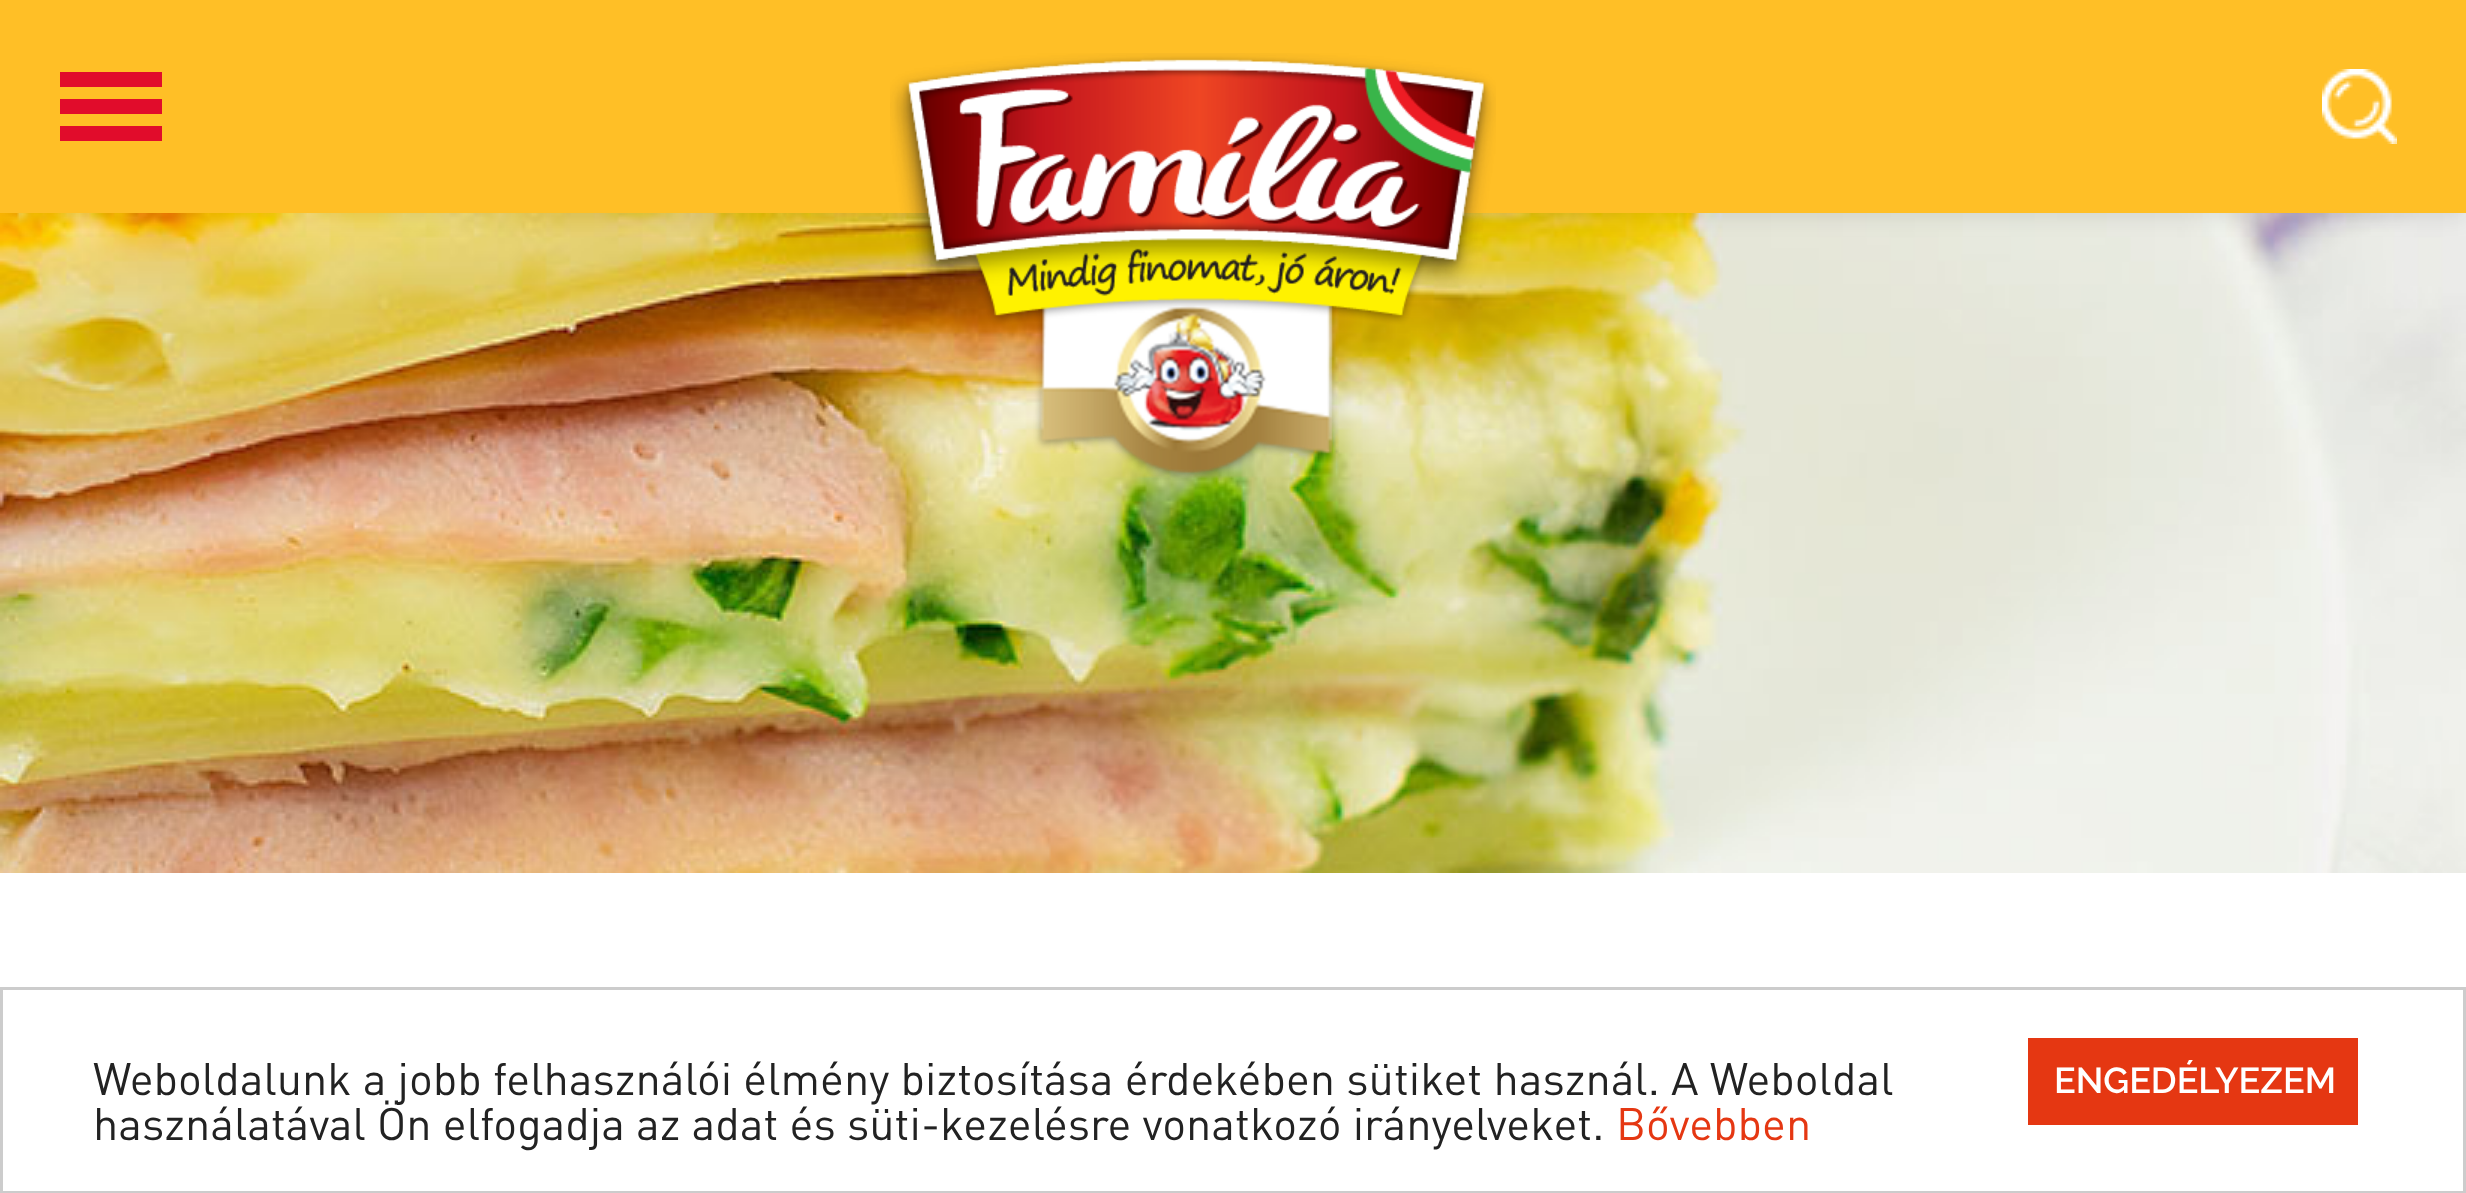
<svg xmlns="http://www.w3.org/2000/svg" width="2466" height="1193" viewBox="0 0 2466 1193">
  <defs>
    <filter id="blur1" x="-50%" y="-200%" width="200%" height="500%"><feGaussianBlur stdDeviation="10.5"/></filter>
  </defs>
  <rect width="100%" height="100%" fill="#ffffff"/>
  <image x="0" y="213" width="2466" height="660" href="img3.png"/>
  <rect x="0" y="3" width="2466" height="213" fill="#000000" fill-opacity="0.1" filter="url(#blur1)"/>
  <rect x="0" y="0" width="2466" height="213" fill="#ffbf26"/>
  <rect x="60" y="72" width="102" height="15" fill="#e10c2b"/>
  <rect x="60" y="99" width="102" height="15" fill="#e10c2b"/>
  <rect x="60" y="126" width="102" height="15" fill="#e10c2b"/>
  <image x="2322" y="69" width="75" height="75" href="img1.png"/>
  <image x="890" y="53" width="606" height="428" href="img2.png"/>
  <rect x="1.5" y="988.5" width="2463" height="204" fill="none" stroke="#cccccc" stroke-width="3"/>
  <text x="93" y="1095" font-family="DIN" font-size="45" fill="#222222">Weboldalunk a jobb felhasználói élmény biztosítása érdekében sütiket használ. A Weboldal</text>
  <text x="93" y="1140" font-family="DIN" font-size="45" fill="#222222">használatával Ön elfogadja az adat és süti-kezelésre vonatkozó irányelveket.</text>
  <text x="1616" y="1140" font-family="DIN" font-size="45" fill="#e53712">Bővebben</text>
  <rect x="2028" y="1038" width="330" height="87" fill="#e53712"/>
  <text x="2054" y="1093" font-family="Raleway" font-size="36" font-weight="600" fill="#ffffff">ENGEDÉLYEZEM</text>
</svg>
